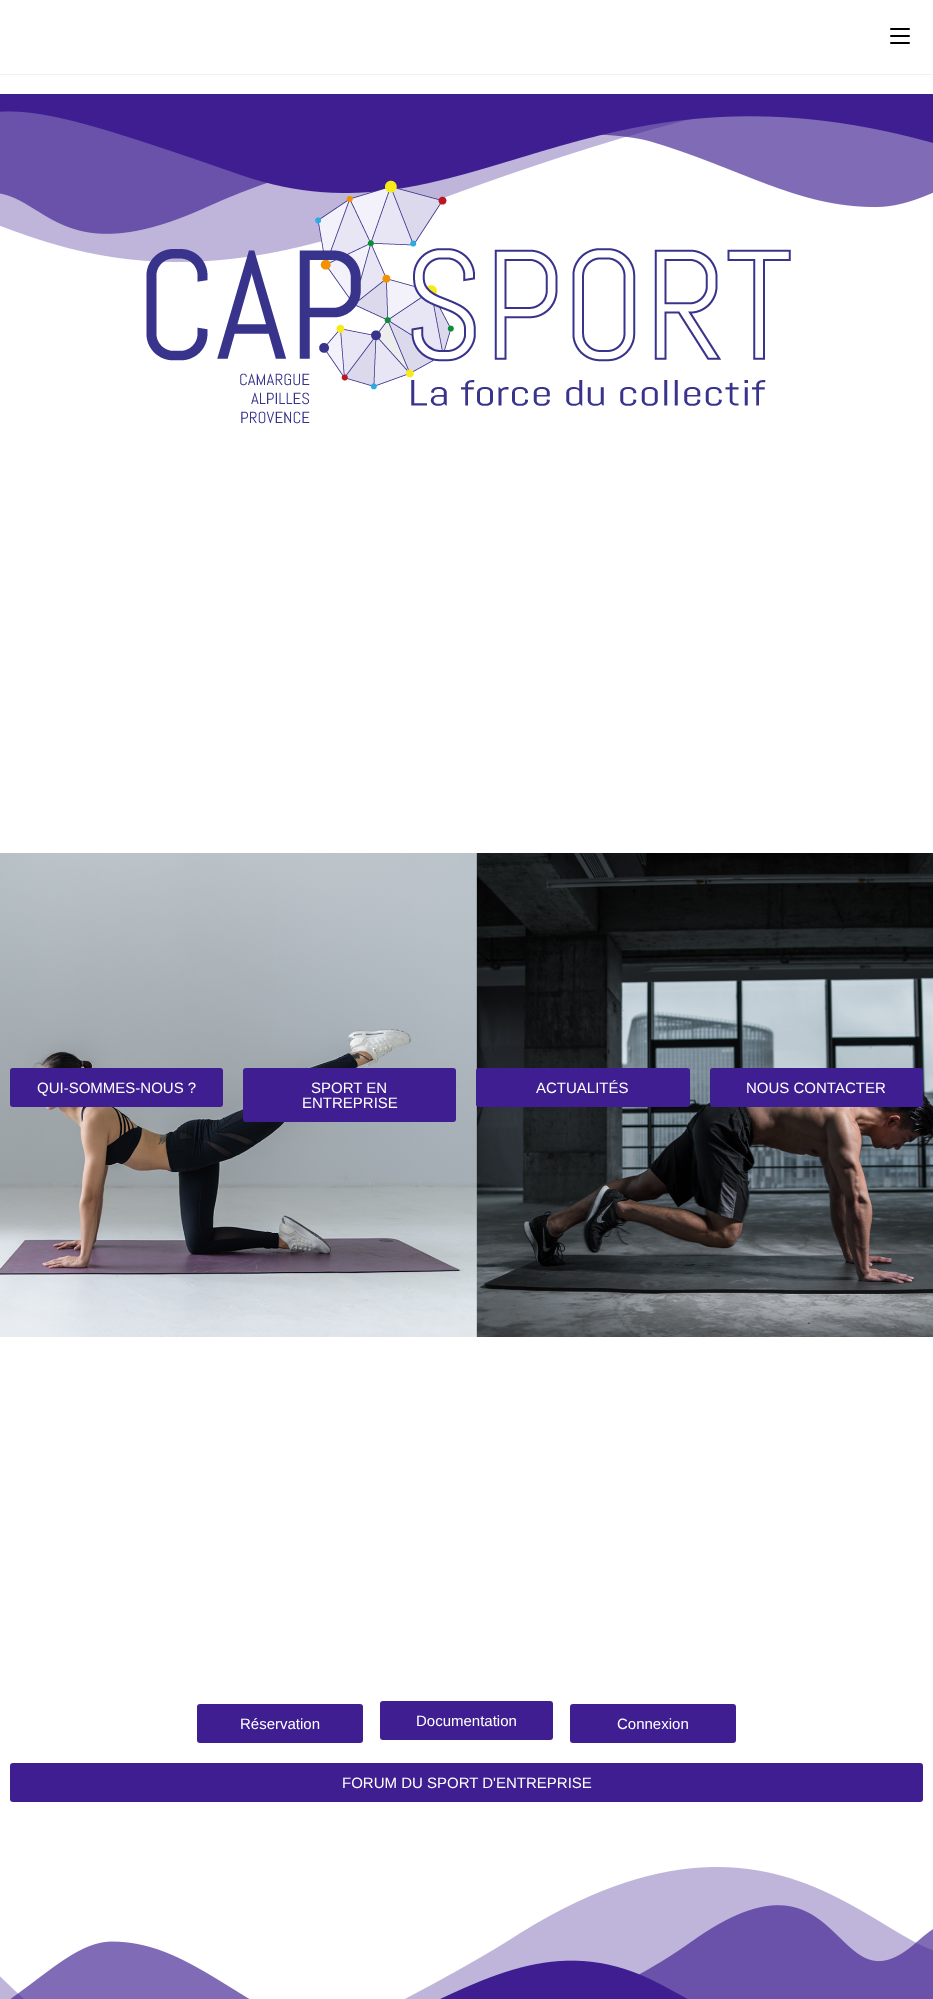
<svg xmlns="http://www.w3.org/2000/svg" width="933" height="1999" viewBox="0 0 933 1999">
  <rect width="100%" height="100%" fill="#ffffff"/>
  <rect x="0" y="74" width="933" height="1" fill="#f1f1f1"/>
  <rect x="890" y="35" width="20" height="2" rx="1" fill="#000000"/>
  <rect x="890" y="28" width="20" height="2" rx="1" fill="#000000"/>
  <rect x="890" y="42" width="20" height="2" rx="1" fill="#000000"/>
  <image x="0" y="94" width="933" height="168" href="img3.png"/>
  <image x="146" y="180" width="645" height="244" href="img1.png"/>
  <image x="0" y="853" width="933" height="484" href="img2.png"/>
  <rect x="10" y="1068" width="213" height="39" rx="3" fill="#3e1e90"/>
  <text x="37" y="1093" font-family="Liberation Sans" font-size="15" fill="#ffffff">QUI-SOMMES-NOUS ?</text>
  <rect x="243" y="1068" width="213" height="54" rx="3" fill="#3e1e90"/>
  <text x="311" y="1093" font-family="Liberation Sans" font-size="15" fill="#ffffff">SPORT EN</text>
  <text x="302" y="1108" font-family="Liberation Sans" font-size="15" fill="#ffffff">ENTREPRISE</text>
  <rect x="476" y="1068" width="214" height="39" rx="3" fill="#3e1e90"/>
  <text x="536" y="1093" font-family="Liberation Sans" font-size="15" fill="#ffffff">ACTUALITÉS</text>
  <rect x="710" y="1068" width="213" height="39" rx="3" fill="#3e1e90"/>
  <text x="746" y="1093" font-family="Liberation Sans" font-size="15" fill="#ffffff">NOUS CONTACTER</text>
  <image x="0" y="1867" width="933" height="132" href="img4.png"/>
  <rect x="197" y="1704" width="166" height="39" rx="3" fill="#3e1e90"/>
  <text x="240" y="1729" font-family="Liberation Sans" font-size="15" fill="#ffffff">Réservation</text>
  <rect x="380" y="1701" width="173" height="39" rx="3" fill="#3e1e90"/>
  <text x="416" y="1726" font-family="Liberation Sans" font-size="15" fill="#ffffff">Documentation</text>
  <rect x="570" y="1704" width="166" height="39" rx="3" fill="#3e1e90"/>
  <text x="617" y="1729" font-family="Liberation Sans" font-size="15" fill="#ffffff">Connexion</text>
  <rect x="10" y="1763" width="913" height="39" rx="3" fill="#3e1e90"/>
  <text x="342" y="1788" font-family="Liberation Sans" font-size="15" fill="#ffffff">FORUM DU SPORT D'ENTREPRISE</text>
</svg>
